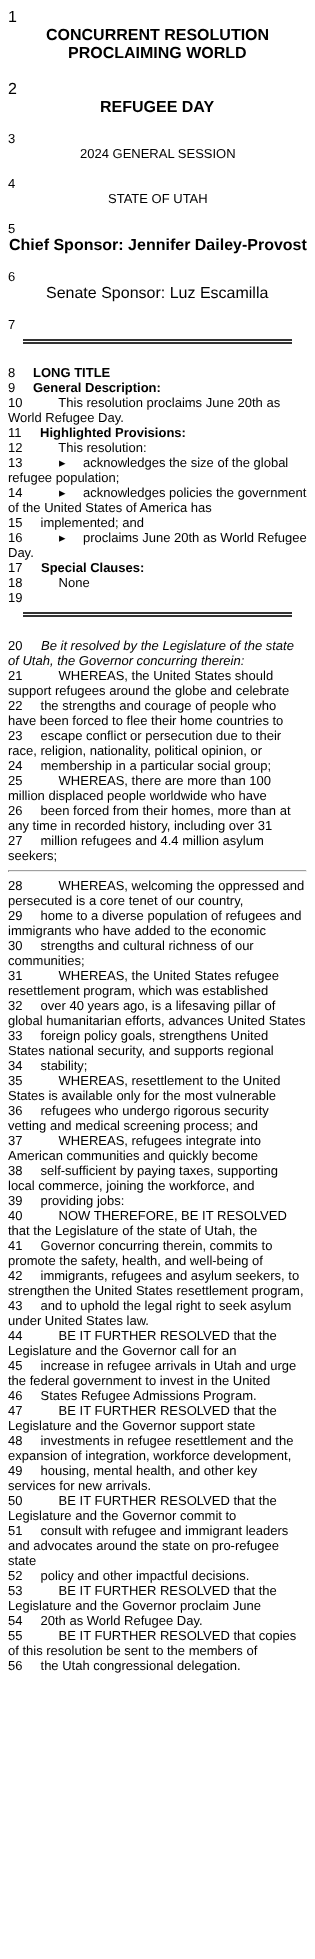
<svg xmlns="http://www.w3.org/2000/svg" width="315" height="1959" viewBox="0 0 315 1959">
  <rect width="100%" height="100%" fill="#ffffff"/>
  <text x="8" y="22" font-family="Liberation Sans" font-size="16" fill="#000000">1</text>
  <text x="46" y="40" font-family="Liberation Sans" font-size="16" font-weight="bold" fill="#000000">CONCURRENT RESOLUTION</text>
  <text x="68" y="58" font-family="Liberation Sans" font-size="16" font-weight="bold" fill="#000000">PROCLAIMING WORLD</text>
  <text x="8" y="94" font-family="Liberation Sans" font-size="16" fill="#000000">2</text>
  <text x="100" y="112" font-family="Liberation Sans" font-size="16" font-weight="bold" fill="#000000">REFUGEE DAY</text>
  <text x="8" y="143" font-family="Liberation Sans" font-size="13" fill="#000000">3</text>
  <text x="80" y="158" font-family="Liberation Sans" font-size="13" fill="#000000">2024 GENERAL SESSION</text>
  <text x="8" y="188" font-family="Liberation Sans" font-size="13" fill="#000000">4</text>
  <text x="108" y="203" font-family="Liberation Sans" font-size="13" fill="#000000">STATE OF UTAH</text>
  <text x="8" y="233" font-family="Liberation Sans" font-size="13" fill="#000000">5</text>
  <text x="9" y="250" font-family="Liberation Sans" font-size="16" font-weight="bold" fill="#000000">Chief Sponsor: Jennifer Dailey-Provost</text>
  <text x="8" y="281" font-family="Liberation Sans" font-size="13" fill="#000000">6</text>
  <text x="46" y="298" font-family="Liberation Sans" font-size="16" fill="#000000">Senate Sponsor: Luz Escamilla</text>
  <text x="8" y="329" font-family="Liberation Sans" font-size="13" fill="#000000">7</text>
  <rect x="23" y="339" width="269" height="2" fill="#333333"/>
  <rect x="23" y="342" width="269" height="2" fill="#333333"/>
  <text x="8" y="377" font-family="Liberation Sans" font-size="13" fill="#000000">8</text>
  <text x="33" y="377" font-family="Liberation Sans" font-size="13" font-weight="bold" fill="#000000">LONG TITLE</text>
  <text x="8" y="392" font-family="Liberation Sans" font-size="13" fill="#000000">9</text>
  <text x="33" y="392" font-family="Liberation Sans" font-size="13" font-weight="bold" fill="#000000">General Description:</text>
  <text x="8" y="407" font-family="Liberation Sans" font-size="13" fill="#000000" xml:space="preserve">10          This resolution proclaims June 20th as</text>
  <text x="8" y="422" font-family="Liberation Sans" font-size="13" fill="#000000">World Refugee Day.</text>
  <text x="8" y="437" font-family="Liberation Sans" font-size="13" fill="#000000">11</text>
  <text x="40" y="437" font-family="Liberation Sans" font-size="13" font-weight="bold" fill="#000000">Highlighted Provisions:</text>
  <text x="8" y="452" font-family="Liberation Sans" font-size="13" fill="#000000" xml:space="preserve">12          This resolution:</text>
  <text x="8" y="467" font-family="Liberation Sans" font-size="13" fill="#000000">13</text>
  <text x="59" y="467" font-family="DejaVu Sans" font-size="13" fill="#000000">▸</text>
  <text x="83" y="467" font-family="Liberation Sans" font-size="13" fill="#000000">acknowledges the size of the global</text>
  <text x="8" y="482" font-family="Liberation Sans" font-size="13" fill="#000000">refugee population;</text>
  <text x="8" y="497" font-family="Liberation Sans" font-size="13" fill="#000000">14</text>
  <text x="59" y="497" font-family="DejaVu Sans" font-size="13" fill="#000000">▸</text>
  <text x="83" y="497" font-family="Liberation Sans" font-size="13" fill="#000000">acknowledges policies the government</text>
  <text x="8" y="512" font-family="Liberation Sans" font-size="13" fill="#000000">of the United States of America has</text>
  <text x="8" y="527" font-family="Liberation Sans" font-size="13" fill="#000000" xml:space="preserve">15     implemented; and</text>
  <text x="8" y="542" font-family="Liberation Sans" font-size="13" fill="#000000">16</text>
  <text x="59" y="542" font-family="DejaVu Sans" font-size="13" fill="#000000">▸</text>
  <text x="83" y="542" font-family="Liberation Sans" font-size="13" fill="#000000">proclaims June 20th as World Refugee</text>
  <text x="8" y="557" font-family="Liberation Sans" font-size="13" fill="#000000">Day.</text>
  <text x="8" y="572" font-family="Liberation Sans" font-size="13" fill="#000000">17</text>
  <text x="41" y="572" font-family="Liberation Sans" font-size="13" font-weight="bold" fill="#000000">Special Clauses:</text>
  <text x="8" y="587" font-family="Liberation Sans" font-size="13" fill="#000000" xml:space="preserve">18          None</text>
  <text x="8" y="602" font-family="Liberation Sans" font-size="13" fill="#000000">19</text>
  <rect x="23" y="612" width="269" height="2" fill="#333333"/>
  <rect x="23" y="615" width="269" height="2" fill="#333333"/>
  <text x="8" y="650" font-family="Liberation Sans" font-size="13" fill="#000000">20</text>
  <text x="41" y="650" font-family="Liberation Sans" font-size="13" font-style="italic" fill="#000000">Be it resolved by the Legislature of the state</text>
  <text x="8" y="665" font-family="Liberation Sans" font-size="13" font-style="italic" fill="#000000">of Utah, the Governor concurring therein:</text>
  <text x="8" y="680" font-family="Liberation Sans" font-size="13" fill="#000000" xml:space="preserve">21          WHEREAS, the United States should</text>
  <text x="8" y="695" font-family="Liberation Sans" font-size="13" fill="#000000">support refugees around the globe and celebrate</text>
  <text x="8" y="710" font-family="Liberation Sans" font-size="13" fill="#000000" xml:space="preserve">22     the strengths and courage of people who</text>
  <text x="8" y="725" font-family="Liberation Sans" font-size="13" fill="#000000">have been forced to flee their home countries to</text>
  <text x="8" y="740" font-family="Liberation Sans" font-size="13" fill="#000000" xml:space="preserve">23     escape conflict or persecution due to their</text>
  <text x="8" y="755" font-family="Liberation Sans" font-size="13" fill="#000000">race, religion, nationality, political opinion, or</text>
  <text x="8" y="770" font-family="Liberation Sans" font-size="13" fill="#000000" xml:space="preserve">24     membership in a particular social group;</text>
  <text x="8" y="785" font-family="Liberation Sans" font-size="13" fill="#000000" xml:space="preserve">25          WHEREAS, there are more than 100</text>
  <text x="8" y="800" font-family="Liberation Sans" font-size="13" fill="#000000">million displaced people worldwide who have</text>
  <text x="8" y="815" font-family="Liberation Sans" font-size="13" fill="#000000" xml:space="preserve">26     been forced from their homes, more than at</text>
  <text x="8" y="830" font-family="Liberation Sans" font-size="13" fill="#000000">any time in recorded history, including over 31</text>
  <text x="8" y="845" font-family="Liberation Sans" font-size="13" fill="#000000" xml:space="preserve">27     million refugees and 4.4 million asylum</text>
  <text x="8" y="860" font-family="Liberation Sans" font-size="13" fill="#000000">seekers;</text>
  <rect x="8" y="870" width="299" height="1" fill="#9f9f9f"/>
  <rect x="306" y="870" width="1" height="2" fill="#eeeeee"/>
  <rect x="8" y="871" width="299" height="1" fill="#eeeeee"/>
  <rect x="8" y="870" width="1" height="2" fill="#9f9f9f"/>
  <text x="8" y="890" font-family="Liberation Sans" font-size="13" fill="#000000" xml:space="preserve">28          WHEREAS, welcoming the oppressed and</text>
  <text x="8" y="905" font-family="Liberation Sans" font-size="13" fill="#000000">persecuted is a core tenet of our country,</text>
  <text x="8" y="920" font-family="Liberation Sans" font-size="13" fill="#000000" xml:space="preserve">29     home to a diverse population of refugees and</text>
  <text x="8" y="935" font-family="Liberation Sans" font-size="13" fill="#000000">immigrants who have added to the economic</text>
  <text x="8" y="950" font-family="Liberation Sans" font-size="13" fill="#000000" xml:space="preserve">30     strengths and cultural richness of our</text>
  <text x="8" y="965" font-family="Liberation Sans" font-size="13" fill="#000000">communities;</text>
  <text x="8" y="980" font-family="Liberation Sans" font-size="13" fill="#000000" xml:space="preserve">31          WHEREAS, the United States refugee</text>
  <text x="8" y="995" font-family="Liberation Sans" font-size="13" fill="#000000">resettlement program, which was established</text>
  <text x="8" y="1010" font-family="Liberation Sans" font-size="13" fill="#000000" xml:space="preserve">32     over 40 years ago, is a lifesaving pillar of</text>
  <text x="8" y="1025" font-family="Liberation Sans" font-size="13" fill="#000000">global humanitarian efforts, advances United States</text>
  <text x="8" y="1040" font-family="Liberation Sans" font-size="13" fill="#000000" xml:space="preserve">33     foreign policy goals, strengthens United</text>
  <text x="8" y="1055" font-family="Liberation Sans" font-size="13" fill="#000000">States national security, and supports regional</text>
  <text x="8" y="1070" font-family="Liberation Sans" font-size="13" fill="#000000" xml:space="preserve">34     stability;</text>
  <text x="8" y="1085" font-family="Liberation Sans" font-size="13" fill="#000000" xml:space="preserve">35          WHEREAS, resettlement to the United</text>
  <text x="8" y="1100" font-family="Liberation Sans" font-size="13" fill="#000000">States is available only for the most vulnerable</text>
  <text x="8" y="1115" font-family="Liberation Sans" font-size="13" fill="#000000" xml:space="preserve">36     refugees who undergo rigorous security</text>
  <text x="8" y="1130" font-family="Liberation Sans" font-size="13" fill="#000000">vetting and medical screening process; and</text>
  <text x="8" y="1145" font-family="Liberation Sans" font-size="13" fill="#000000" xml:space="preserve">37          WHEREAS, refugees integrate into</text>
  <text x="8" y="1160" font-family="Liberation Sans" font-size="13" fill="#000000">American communities and quickly become</text>
  <text x="8" y="1175" font-family="Liberation Sans" font-size="13" fill="#000000" xml:space="preserve">38     self-sufficient by paying taxes, supporting</text>
  <text x="8" y="1190" font-family="Liberation Sans" font-size="13" fill="#000000">local commerce, joining the workforce, and</text>
  <text x="8" y="1205" font-family="Liberation Sans" font-size="13" fill="#000000" xml:space="preserve">39     providing jobs:</text>
  <text x="8" y="1220" font-family="Liberation Sans" font-size="13" fill="#000000" xml:space="preserve">40          NOW THEREFORE, BE IT RESOLVED</text>
  <text x="8" y="1235" font-family="Liberation Sans" font-size="13" fill="#000000">that the Legislature of the state of Utah, the</text>
  <text x="8" y="1250" font-family="Liberation Sans" font-size="13" fill="#000000" xml:space="preserve">41     Governor concurring therein, commits to</text>
  <text x="8" y="1265" font-family="Liberation Sans" font-size="13" fill="#000000">promote the safety, health, and well-being of</text>
  <text x="8" y="1280" font-family="Liberation Sans" font-size="13" fill="#000000" xml:space="preserve">42     immigrants, refugees and asylum seekers, to</text>
  <text x="8" y="1295" font-family="Liberation Sans" font-size="13" fill="#000000">strengthen the United States resettlement program,</text>
  <text x="8" y="1310" font-family="Liberation Sans" font-size="13" fill="#000000" xml:space="preserve">43     and to uphold the legal right to seek asylum</text>
  <text x="8" y="1325" font-family="Liberation Sans" font-size="13" fill="#000000">under United States law.</text>
  <text x="8" y="1340" font-family="Liberation Sans" font-size="13" fill="#000000" xml:space="preserve">44          BE IT FURTHER RESOLVED that the</text>
  <text x="8" y="1355" font-family="Liberation Sans" font-size="13" fill="#000000">Legislature and the Governor call for an</text>
  <text x="8" y="1370" font-family="Liberation Sans" font-size="13" fill="#000000" xml:space="preserve">45     increase in refugee arrivals in Utah and urge</text>
  <text x="8" y="1385" font-family="Liberation Sans" font-size="13" fill="#000000">the federal government to invest in the United</text>
  <text x="8" y="1400" font-family="Liberation Sans" font-size="13" fill="#000000" xml:space="preserve">46     States Refugee Admissions Program.</text>
  <text x="8" y="1415" font-family="Liberation Sans" font-size="13" fill="#000000" xml:space="preserve">47          BE IT FURTHER RESOLVED that the</text>
  <text x="8" y="1430" font-family="Liberation Sans" font-size="13" fill="#000000">Legislature and the Governor support state</text>
  <text x="8" y="1445" font-family="Liberation Sans" font-size="13" fill="#000000" xml:space="preserve">48     investments in refugee resettlement and the</text>
  <text x="8" y="1460" font-family="Liberation Sans" font-size="13" fill="#000000">expansion of integration, workforce development,</text>
  <text x="8" y="1475" font-family="Liberation Sans" font-size="13" fill="#000000" xml:space="preserve">49     housing, mental health, and other key</text>
  <text x="8" y="1490" font-family="Liberation Sans" font-size="13" fill="#000000">services for new arrivals.</text>
  <text x="8" y="1505" font-family="Liberation Sans" font-size="13" fill="#000000" xml:space="preserve">50          BE IT FURTHER RESOLVED that the</text>
  <text x="8" y="1520" font-family="Liberation Sans" font-size="13" fill="#000000">Legislature and the Governor commit to</text>
  <text x="8" y="1535" font-family="Liberation Sans" font-size="13" fill="#000000" xml:space="preserve">51     consult with refugee and immigrant leaders</text>
  <text x="8" y="1550" font-family="Liberation Sans" font-size="13" fill="#000000">and advocates around the state on pro-refugee</text>
  <text x="8" y="1565" font-family="Liberation Sans" font-size="13" fill="#000000">state</text>
  <text x="8" y="1580" font-family="Liberation Sans" font-size="13" fill="#000000" xml:space="preserve">52     policy and other impactful decisions.</text>
  <text x="8" y="1595" font-family="Liberation Sans" font-size="13" fill="#000000" xml:space="preserve">53          BE IT FURTHER RESOLVED that the</text>
  <text x="8" y="1610" font-family="Liberation Sans" font-size="13" fill="#000000">Legislature and the Governor proclaim June</text>
  <text x="8" y="1625" font-family="Liberation Sans" font-size="13" fill="#000000" xml:space="preserve">54     20th as World Refugee Day.</text>
  <text x="8" y="1640" font-family="Liberation Sans" font-size="13" fill="#000000" xml:space="preserve">55          BE IT FURTHER RESOLVED that copies</text>
  <text x="8" y="1655" font-family="Liberation Sans" font-size="13" fill="#000000">of this resolution be sent to the members of</text>
  <text x="8" y="1670" font-family="Liberation Sans" font-size="13" fill="#000000" xml:space="preserve">56     the Utah congressional delegation.</text>
</svg>
